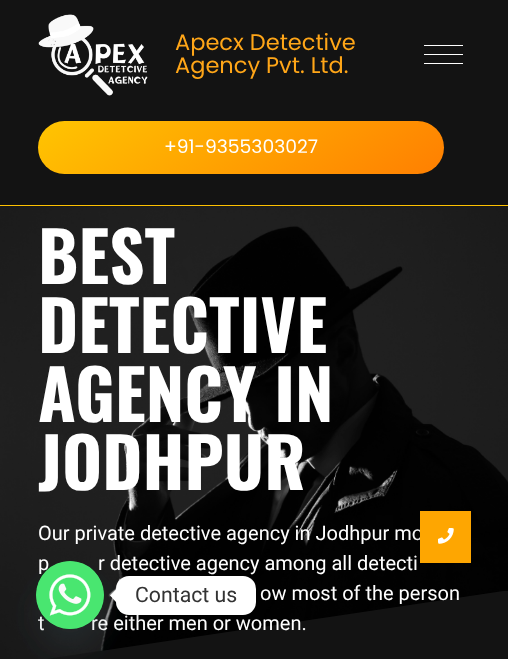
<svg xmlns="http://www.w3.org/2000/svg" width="508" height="659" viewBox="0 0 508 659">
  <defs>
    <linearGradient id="g1" gradientUnits="userSpaceOnUse" x1="161" y1="34" x2="320" y2="261"><stop offset="0" stop-color="#ffc501"/><stop offset="1" stop-color="#ff7f01"/></linearGradient>
    <clipPath id="clip1"><rect x="0" y="591" width="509" height="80"/></clipPath>
    <filter id="blur1" x="-50%" y="-200%" width="200%" height="500%"><feGaussianBlur stdDeviation="6"/></filter>
    <filter id="blur2" x="-50%" y="-200%" width="200%" height="500%"><feGaussianBlur stdDeviation="15"/></filter>
    <filter id="blur3" x="-50%" y="-200%" width="200%" height="500%"><feGaussianBlur stdDeviation="5"/></filter>
  </defs>
  <rect width="100%" height="100%" fill="#131313"/>
  <rect x="0" y="205" width="508" height="1" fill="#fec101"/>
  <image x="38" y="14" width="110" height="82" href="img1.png"/>
  <text x="175" y="50" font-family="Poppins" font-size="22.5" fill="#ffa618">Apecx Detective</text>
  <text x="175" y="73" font-family="Poppins" font-size="22.5" fill="#ffa618">Agency Pvt. Ltd.</text>
  <rect x="424" y="45" width="39" height="1" fill="#ffffff"/>
  <rect x="424" y="54" width="39" height="1" fill="#ffffff"/>
  <rect x="424" y="63" width="39" height="1" fill="#ffffff"/>
  <rect x="38" y="121" width="406" height="53" rx="26.5" fill="url(#g1)"/>
  <text x="164" y="153" font-family="Poppins" font-size="18.75" fill="#ffffff">+91-9355303027</text>
  <image x="0" y="206" width="508" height="453" href="img2.png"/>
  <text x="38" y="284" font-family="Oswald" font-size="68.75" font-weight="bold" fill="#ffffff">BEST</text>
  <text x="38" y="353" font-family="Oswald" font-size="68.75" font-weight="bold" fill="#ffffff">DETECTIVE</text>
  <text x="38" y="422" font-family="Oswald" font-size="68.75" font-weight="bold" fill="#ffffff">AGENCY IN</text>
  <text x="38" y="490" font-family="Oswald" font-size="68.75" font-weight="bold" fill="#ffffff">JODHPUR</text>
  <text x="38" y="540" font-family="Roboto" font-size="20" fill="#ffffff">Our private detective agency in Jodhpur mo</text>
  <text x="38" y="570" font-family="Roboto" font-size="20" fill="#ffffff">p</text>
  <text x="98" y="570" font-family="Roboto" font-size="20" fill="#ffffff">r detective agency among all detecti</text>
  <g clip-path="url(#clip1)">
    <path d="M0 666V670H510V590Z" fill="#131313"/>
  </g>
  <text x="260" y="600" font-family="Roboto" font-size="20" fill="#ffffff">ow most of the person</text>
  <text x="38" y="630" font-family="Roboto" font-size="20" fill="#ffffff">t</text>
  <text x="91" y="630" font-family="Roboto" font-size="20" fill="#ffffff">re either men or women.</text>
  <rect x="420" y="511" width="51" height="52" fill="#000000" fill-opacity="0.2" filter="url(#blur1)"/>
  <rect x="420" y="511" width="51" height="52" fill="#fea601"/>
  <image x="438" y="528" width="16" height="16" href="img3.png"/>
  <rect x="36" y="581" width="68" height="68" rx="34" fill="#49687e" fill-opacity="0.16" filter="url(#blur2)"/>
  <circle cx="70" cy="595" r="34" fill="#49e670"/>
  <image x="36" y="561" width="68" height="68" href="img4.png"/>
  <rect x="116" y="578" width="140" height="38" rx="13" fill="#000000" fill-opacity="0.15" filter="url(#blur3)"/>
  <rect x="116" y="576" width="140" height="39" rx="13" fill="#ffffff"/>
  <path d="M116 589.5V602L110 595.5Z" fill="#ffffff"/>
  <text x="135" y="602" font-family="Roboto" font-size="21.25" fill="#333333">Contact us</text>
</svg>
